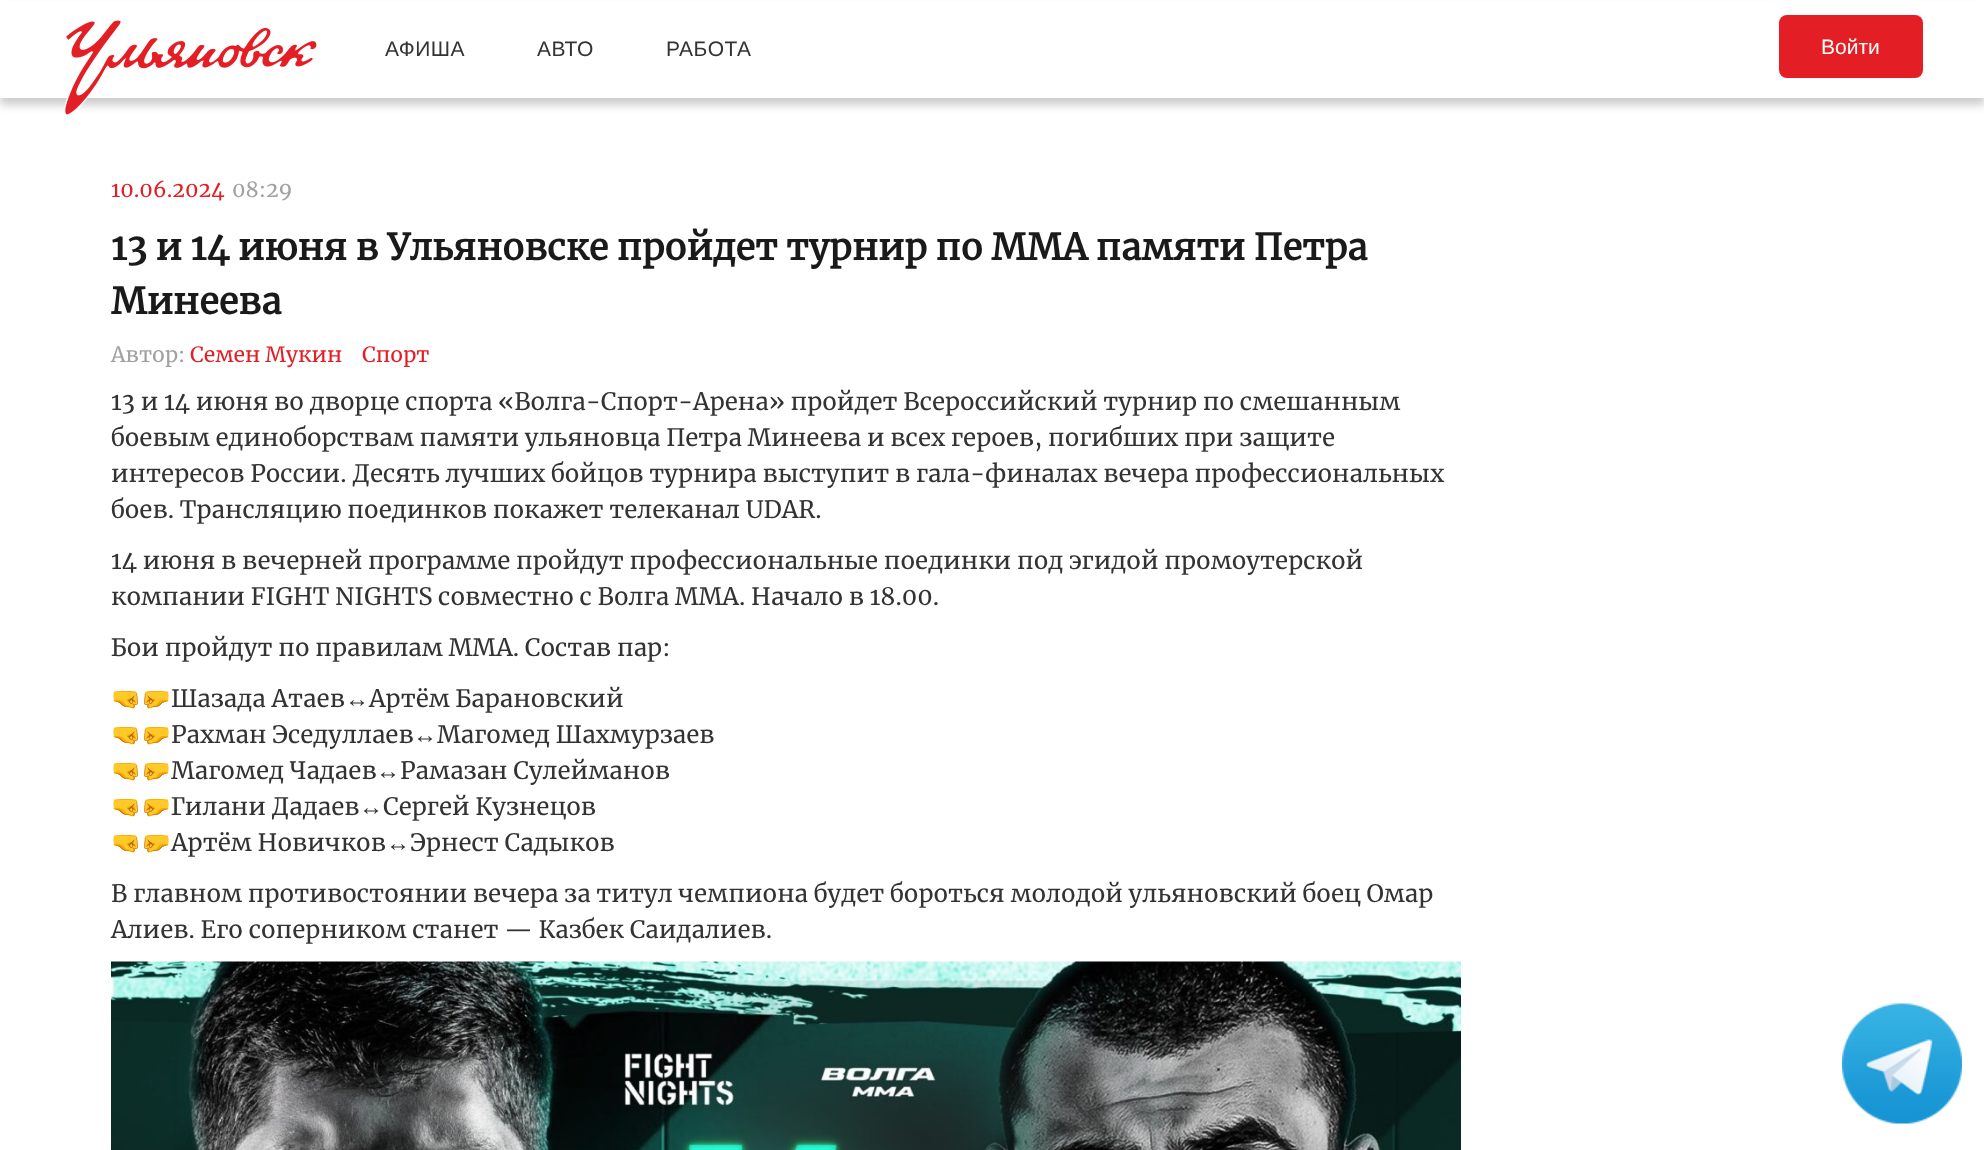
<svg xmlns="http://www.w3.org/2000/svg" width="1984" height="1150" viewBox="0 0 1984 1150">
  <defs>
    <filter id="blur1" x="-50%" y="-200%" width="200%" height="500%"><feGaussianBlur stdDeviation="4"/></filter>
  </defs>
  <rect width="100%" height="100%" fill="#ffffff"/>
  <rect x="0" y="8" width="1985" height="97" fill="#000000" fill-opacity="0.2" filter="url(#blur1)"/>
  <rect x="0" y="1" width="1984" height="97" fill="#ffffff"/>
  <image x="64" y="20" width="253" height="95" href="img1.png"/>
  <text x="385" y="56" font-family="Liberation Sans" font-size="21" letter-spacing="0.5" fill="#333333">АФИША</text>
  <text x="537" y="56" font-family="Liberation Sans" font-size="21" letter-spacing="0.5" fill="#333333">АВТО</text>
  <text x="666" y="56" font-family="Liberation Sans" font-size="21" letter-spacing="0.5" fill="#333333">РАБОТА</text>
  <rect x="1779" y="15" width="144" height="63" rx="8" fill="#e31e24"/>
  <text x="1821" y="54" font-family="Liberation Sans" font-size="21" fill="#ffffff">Войти</text>
  <text x="111" y="197" font-family="Merriweather" font-size="21" fill="#e31e24">10.06.2024</text>
  <text x="232" y="197" font-family="Merriweather" font-size="21" fill="#a1a1a1">08:29</text>
  <text x="111" y="260" font-family="Merriweather" font-size="36" font-weight="bold" fill="#1a1a1a">13 и 14 июня в Ульяновске пройдет турнир по ММА памяти Петра</text>
  <text x="111" y="314" font-family="Merriweather" font-size="36" font-weight="bold" fill="#1a1a1a">Минеева</text>
  <text x="111" y="362" font-family="Merriweather" font-size="21" fill="#a1a1a1">Автор:</text>
  <text x="190" y="362" font-family="Merriweather" font-size="21" fill="#e31e24">Семен Мукин</text>
  <text x="362" y="362" font-family="Merriweather" font-size="21" fill="#e31e24">Спорт</text>
  <text x="111" y="410" font-family="Merriweather" font-size="24" fill="#333333">13 и 14 июня во дворце спорта «Волга-Спорт-Арена» пройдет Всероссийский турнир по смешанным</text>
  <text x="111" y="446" font-family="Merriweather" font-size="24" fill="#333333">боевым единоборствам памяти ульяновца Петра Минеева и всех героев, погибших при защите</text>
  <text x="111" y="482" font-family="Merriweather" font-size="24" fill="#333333">интересов России. Десять лучших бойцов турнира выступит в гала-финалах вечера профессиональных</text>
  <text x="111" y="518" font-family="Merriweather" font-size="24" fill="#333333">боев. Трансляцию поединков покажет телеканал UDAR.</text>
  <text x="111" y="569" font-family="Merriweather" font-size="24" fill="#333333">14 июня в вечерней программе пройдут профессиональные поединки под эгидой промоутерской</text>
  <text x="111" y="605" font-family="Merriweather" font-size="24" fill="#333333">компании FIGHT NIGHTS совместно с Волга ММА. Начало в 18.00.</text>
  <text x="111" y="656" font-family="Merriweather" font-size="24" fill="#333333">Бои пройдут по правилам ММА. Состав пар:</text>
  <text x="111" y="707" font-family="Noto Color Emoji" font-size="24" fill="#333333">🤜🤛</text>
  <text x="171" y="707" font-family="Merriweather" font-size="24" fill="#333333">Шазада Атаев</text>
  <text x="345" y="707" font-family="Liberation Serif" font-size="24" fill="#333333">↔</text>
  <text x="369" y="707" font-family="Merriweather" font-size="24" fill="#333333">Артём Барановский</text>
  <text x="111" y="743" font-family="Noto Color Emoji" font-size="24" fill="#333333">🤜🤛</text>
  <text x="171" y="743" font-family="Merriweather" font-size="24" fill="#333333">Рахман Эседуллаев</text>
  <text x="413" y="743" font-family="Liberation Serif" font-size="24" fill="#333333">↔</text>
  <text x="437" y="743" font-family="Merriweather" font-size="24" fill="#333333">Магомед Шахмурзаев</text>
  <text x="111" y="779" font-family="Noto Color Emoji" font-size="24" fill="#333333">🤜🤛</text>
  <text x="171" y="779" font-family="Merriweather" font-size="24" fill="#333333">Магомед Чадаев</text>
  <text x="376" y="779" font-family="Liberation Serif" font-size="24" fill="#333333">↔</text>
  <text x="400" y="779" font-family="Merriweather" font-size="24" fill="#333333">Рамазан Сулейманов</text>
  <text x="111" y="815" font-family="Noto Color Emoji" font-size="24" fill="#333333">🤜🤛</text>
  <text x="171" y="815" font-family="Merriweather" font-size="24" fill="#333333">Гилани Дадаев</text>
  <text x="359" y="815" font-family="Liberation Serif" font-size="24" fill="#333333">↔</text>
  <text x="383" y="815" font-family="Merriweather" font-size="24" fill="#333333">Сергей Кузнецов</text>
  <text x="111" y="851" font-family="Noto Color Emoji" font-size="24" fill="#333333">🤜🤛</text>
  <text x="171" y="851" font-family="Merriweather" font-size="24" fill="#333333">Артём Новичков</text>
  <text x="386" y="851" font-family="Liberation Serif" font-size="24" fill="#333333">↔</text>
  <text x="410" y="851" font-family="Merriweather" font-size="24" fill="#333333">Эрнест Садыков</text>
  <text x="111" y="902" font-family="Merriweather" font-size="24" fill="#333333">В главном противостоянии вечера за титул чемпиона будет бороться молодой ульяновский боец Омар</text>
  <text x="111" y="938" font-family="Merriweather" font-size="24" fill="#333333">Алиев. Его соперником станет — Казбек Саидалиев.</text>
  <image x="111" y="961" width="1350" height="189" href="img2.png"/>
  <image x="1842" y="1003" width="120" height="121" href="img3.png"/>
</svg>
